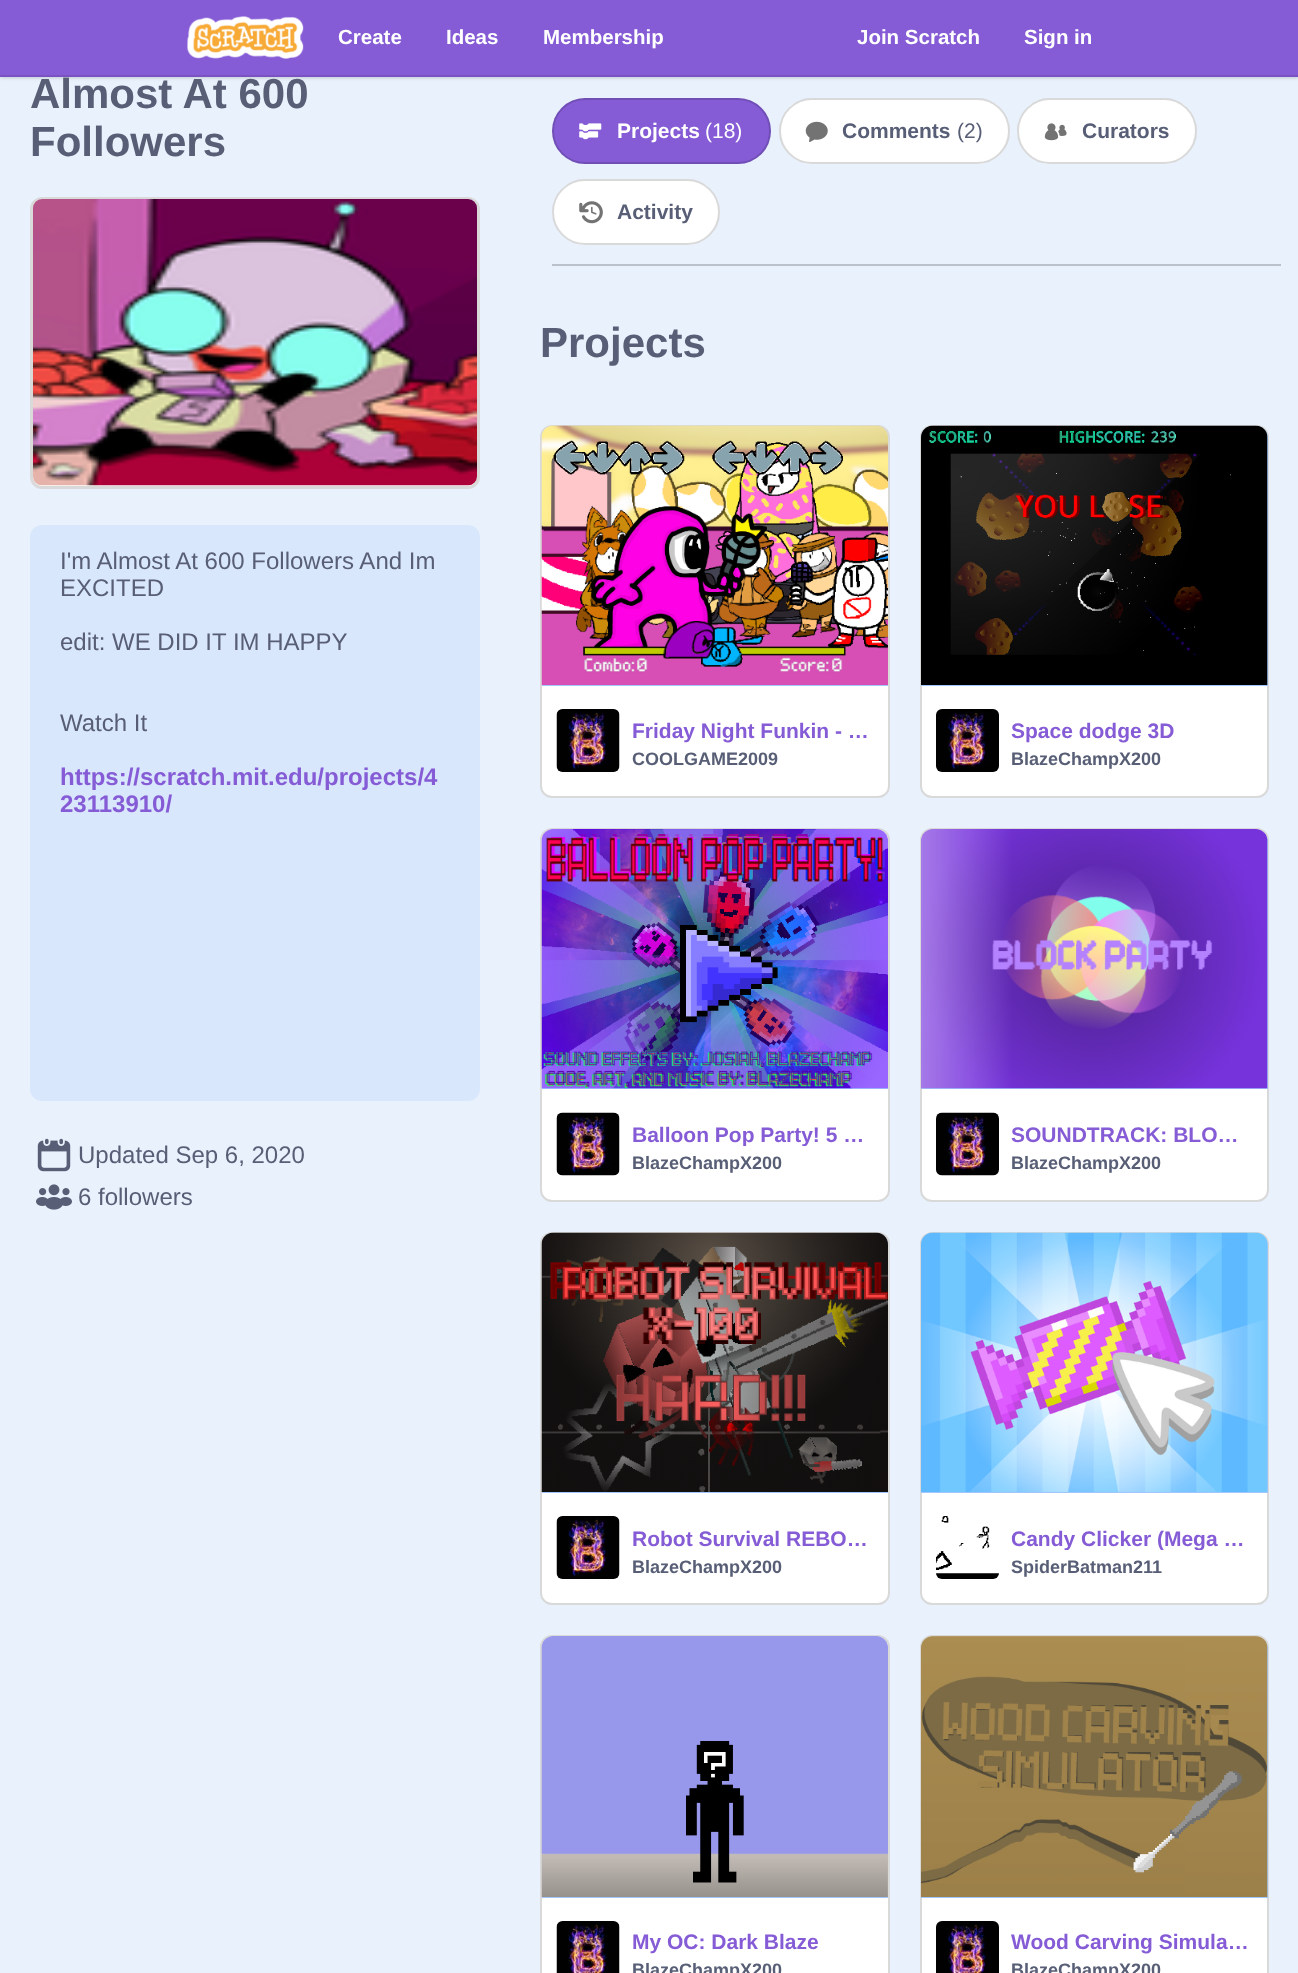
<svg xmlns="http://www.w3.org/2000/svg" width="1298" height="1973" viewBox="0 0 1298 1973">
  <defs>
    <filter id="blur1" x="-50%" y="-200%" width="200%" height="500%"><feGaussianBlur stdDeviation="2"/></filter>
    <clipPath id="clip1"><rect x="632" y="1122" width="238" height="24"/></clipPath>
    <clipPath id="clip2"><rect x="1011" y="1526" width="239" height="24"/></clipPath>
  </defs>
  <rect width="100%" height="100%" fill="#e9f1fc"/>
  <rect x="0" y="0" width="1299" height="77" fill="#000000" fill-opacity="0.25" filter="url(#blur1)"/>
  <rect x="0" y="0" width="1298" height="75" fill="#855cd6"/>
  <rect x="0" y="75" width="1298" height="2" fill="#7853c1"/>
  <image x="187" y="16" width="117" height="43" href="img1.png"/>
  <text x="338" y="44" font-family="Liberation Sans" font-size="20.5" font-weight="bold" fill="#ffffff">Create</text>
  <text x="446" y="44" font-family="Liberation Sans" font-size="20.5" font-weight="bold" fill="#ffffff">Ideas</text>
  <text x="543" y="44" font-family="Liberation Sans" font-size="20.5" font-weight="bold" fill="#ffffff">Membership</text>
  <text x="857" y="44" font-family="Liberation Sans" font-size="20.5" font-weight="bold" fill="#ffffff">Join Scratch</text>
  <text x="1024" y="44" font-family="Liberation Sans" font-size="20.5" font-weight="bold" fill="#ffffff">Sign in</text>
  <text x="30" y="108" font-family="Liberation Sans" font-size="42" font-weight="bold" fill="#575e75">Almost At 600</text>
  <text x="30" y="156" font-family="Liberation Sans" font-size="42" font-weight="bold" fill="#575e75">Followers</text>
  <rect x="30" y="197" width="450" height="292" rx="12" fill="#ffffff"/>
  <rect x="31.5" y="198.5" width="447" height="289" rx="10.5" fill="none" stroke="#000000" stroke-opacity="0.15" stroke-width="3"/>
  <image x="33" y="199" width="444" height="287" href="img2.png"/>
  <rect x="30" y="525" width="450" height="576" rx="12" fill="#d9e7fc"/>
  <text x="60" y="569" font-family="Liberation Sans" font-size="24" fill="#575e75">I'm Almost At 600 Followers And Im</text>
  <text x="60" y="596" font-family="Liberation Sans" font-size="24" fill="#575e75">EXCITED</text>
  <text x="60" y="650" font-family="Liberation Sans" font-size="24" fill="#575e75">edit: WE DID IT IM HAPPY</text>
  <text x="60" y="731" font-family="Liberation Sans" font-size="24" fill="#575e75">Watch It</text>
  <text x="60" y="785" font-family="Liberation Sans" font-size="24" font-weight="bold" fill="#855cd6">https://scratch.mit.edu/projects/4</text>
  <text x="60" y="812" font-family="Liberation Sans" font-size="24" font-weight="bold" fill="#855cd6">23113910/</text>
  <image x="37" y="1138" width="34" height="34" href="img3.png"/>
  <text x="78" y="1163" font-family="Liberation Sans" font-size="24" fill="#575e75">Updated Sep 6, 2020</text>
  <image x="36" y="1184" width="36" height="26" href="img4.png"/>
  <text x="78" y="1205" font-family="Liberation Sans" font-size="24" fill="#575e75">6 followers</text>
  <rect x="552" y="264" width="729" height="2" fill="#bac1ca"/>
  <rect x="552" y="98" width="219" height="66" rx="33" fill="#855cd6"/>
  <rect x="553" y="99" width="217" height="64" rx="32" fill="none" stroke="#000000" stroke-opacity="0.15" stroke-width="2"/>
  <image x="579" y="123" width="23" height="17" href="img5.png"/>
  <text x="617" y="138" font-family="Liberation Sans" font-size="21" font-weight="bold" fill="#ffffff">Projects</text>
  <text x="705" y="138" font-family="Liberation Sans" font-size="21" fill="#ffffff">(18)</text>
  <rect x="779" y="98" width="231" height="66" rx="33" fill="#ffffff"/>
  <rect x="780" y="99" width="229" height="64" rx="32" fill="none" stroke="#000000" stroke-opacity="0.15" stroke-width="2"/>
  <image x="805" y="121" width="23" height="21" href="img6.png"/>
  <text x="842" y="138" font-family="Liberation Sans" font-size="21" font-weight="bold" fill="#575e75">Comments</text>
  <text x="957" y="138" font-family="Liberation Sans" font-size="21" fill="#575e75">(2)</text>
  <rect x="1017" y="98" width="180" height="66" rx="33" fill="#ffffff"/>
  <rect x="1018" y="99" width="178" height="64" rx="32" fill="none" stroke="#000000" stroke-opacity="0.15" stroke-width="2"/>
  <image x="1044" y="123" width="23" height="18" href="img7.png"/>
  <text x="1082" y="138" font-family="Liberation Sans" font-size="21" font-weight="bold" fill="#575e75">Curators</text>
  <rect x="552" y="179" width="168" height="66" rx="33" fill="#ffffff"/>
  <rect x="553" y="180" width="166" height="64" rx="32" fill="none" stroke="#000000" stroke-opacity="0.15" stroke-width="2"/>
  <image x="579" y="201" width="24" height="23" href="img8.png"/>
  <text x="617" y="219" font-family="Liberation Sans" font-size="21" font-weight="bold" fill="#575e75">Activity</text>
  <text x="540" y="357" font-family="Liberation Sans" font-size="42" font-weight="bold" fill="#575e75">Projects</text>
  <rect x="541" y="426" width="348" height="371" rx="11" fill="#ffffff" stroke="#d9d9d9" stroke-width="2"/>
  <path d="M554 426H876C882.5 426 888 431.5 888 438V686H542V438C542 431.5 547.5 426 554 426Z" fill="#a0c6fc"/>
  <image x="541" y="425" width="347" height="260" href="img9.png"/>
  <image x="556" y="709" width="64" height="63" href="img10.png"/>
  <text x="632" y="738" font-family="Liberation Sans" font-size="21" font-weight="bold" fill="#855cd6">Friday Night Funkin - …</text>
  <text x="632" y="765" font-family="Liberation Sans" font-size="18" font-weight="bold" fill="#575e75">COOLGAME2009</text>
  <rect x="921" y="426" width="347" height="371" rx="11" fill="#ffffff" stroke="#d9d9d9" stroke-width="2"/>
  <path d="M933 426H1256C1262.5 426 1268 431.5 1268 438V686H921V438C921 431.5 926.5 426 933 426Z" fill="#a0c6fc"/>
  <image x="921" y="425" width="347" height="260" href="img11.png"/>
  <image x="936" y="709" width="63" height="63" href="img12.png"/>
  <text x="1011" y="738" font-family="Liberation Sans" font-size="21" font-weight="bold" fill="#855cd6">Space dodge 3D</text>
  <text x="1011" y="765" font-family="Liberation Sans" font-size="18" font-weight="bold" fill="#575e75">BlazeChampX200</text>
  <rect x="541" y="829" width="348" height="372" rx="11" fill="#ffffff" stroke="#d9d9d9" stroke-width="2"/>
  <path d="M554 830H876C882.5 830 888 835.5 888 842V1089H542V842C542 835.5 547.5 830 554 830Z" fill="#a0c6fc"/>
  <image x="541" y="829" width="347" height="260" href="img13.png"/>
  <image x="556" y="1112" width="64" height="64" href="img14.png"/>
  <g clip-path="url(#clip1)">
    <text x="632" y="1142" font-family="Liberation Sans" font-size="21" font-weight="bold" fill="#855cd6">Balloon Pop Party! 5 …</text>
  </g>
  <text x="632" y="1169" font-family="Liberation Sans" font-size="18" font-weight="bold" fill="#575e75">BlazeChampX200</text>
  <rect x="921" y="829" width="347" height="372" rx="11" fill="#ffffff" stroke="#d9d9d9" stroke-width="2"/>
  <path d="M933 830H1256C1262.5 830 1268 835.5 1268 842V1089H921V842C921 835.5 926.5 830 933 830Z" fill="#a0c6fc"/>
  <image x="921" y="829" width="347" height="260" href="img15.png"/>
  <image x="936" y="1112" width="63" height="64" href="img16.png"/>
  <text x="1011" y="1142" font-family="Liberation Sans" font-size="21" font-weight="bold" fill="#855cd6">SOUNDTRACK: BLO…</text>
  <text x="1011" y="1169" font-family="Liberation Sans" font-size="18" font-weight="bold" fill="#575e75">BlazeChampX200</text>
  <rect x="541" y="1233" width="348" height="371" rx="11" fill="#ffffff" stroke="#d9d9d9" stroke-width="2"/>
  <path d="M554 1233H876C882.5 1233 888 1238.5 888 1245V1493H542V1245C542 1238.5 547.5 1233 554 1233Z" fill="#a0c6fc"/>
  <image x="541" y="1232" width="347" height="260" href="img17.png"/>
  <image x="556" y="1516" width="64" height="63" href="img10.png"/>
  <text x="632" y="1546" font-family="Liberation Sans" font-size="21" font-weight="bold" fill="#855cd6">Robot Survival REBO…</text>
  <text x="632" y="1573" font-family="Liberation Sans" font-size="18" font-weight="bold" fill="#575e75">BlazeChampX200</text>
  <rect x="921" y="1233" width="347" height="371" rx="11" fill="#ffffff" stroke="#d9d9d9" stroke-width="2"/>
  <path d="M933 1233H1256C1262.5 1233 1268 1238.5 1268 1245V1493H921V1245C921 1238.5 926.5 1233 933 1233Z" fill="#a0c6fc"/>
  <image x="921" y="1232" width="347" height="260" href="img18.png"/>
  <image x="936" y="1516" width="63" height="63" href="img19.png"/>
  <g clip-path="url(#clip2)">
    <text x="1011" y="1546" font-family="Liberation Sans" font-size="21" font-weight="bold" fill="#855cd6">Candy Clicker (Mega …</text>
  </g>
  <text x="1011" y="1573" font-family="Liberation Sans" font-size="18" font-weight="bold" fill="#575e75">SpiderBatman211</text>
  <rect x="541" y="1636" width="348" height="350" rx="11" fill="#ffffff" stroke="#d9d9d9" stroke-width="2"/>
  <path d="M554 1637H876C882.5 1637 888 1642.5 888 1649V1898H542V1649C542 1642.5 547.5 1637 554 1637Z" fill="#a0c6fc"/>
  <image x="541" y="1636" width="347" height="261" href="img20.png"/>
  <image x="556" y="1921" width="64" height="52" href="img21.png"/>
  <text x="632" y="1949" font-family="Liberation Sans" font-size="21" font-weight="bold" fill="#855cd6">My OC: Dark Blaze</text>
  <text x="632" y="1976" font-family="Liberation Sans" font-size="18" font-weight="bold" fill="#575e75">BlazeChampX200</text>
  <rect x="921" y="1636" width="347" height="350" rx="11" fill="#ffffff" stroke="#d9d9d9" stroke-width="2"/>
  <path d="M933 1637H1256C1262.5 1637 1268 1642.5 1268 1649V1898H921V1649C921 1642.5 926.5 1637 933 1637Z" fill="#a0c6fc"/>
  <image x="921" y="1636" width="347" height="261" href="img22.png"/>
  <image x="936" y="1921" width="63" height="52" href="img23.png"/>
  <text x="1011" y="1949" font-family="Liberation Sans" font-size="21" font-weight="bold" fill="#855cd6">Wood Carving Simula…</text>
  <text x="1011" y="1976" font-family="Liberation Sans" font-size="18" font-weight="bold" fill="#575e75">BlazeChampX200</text>
</svg>
